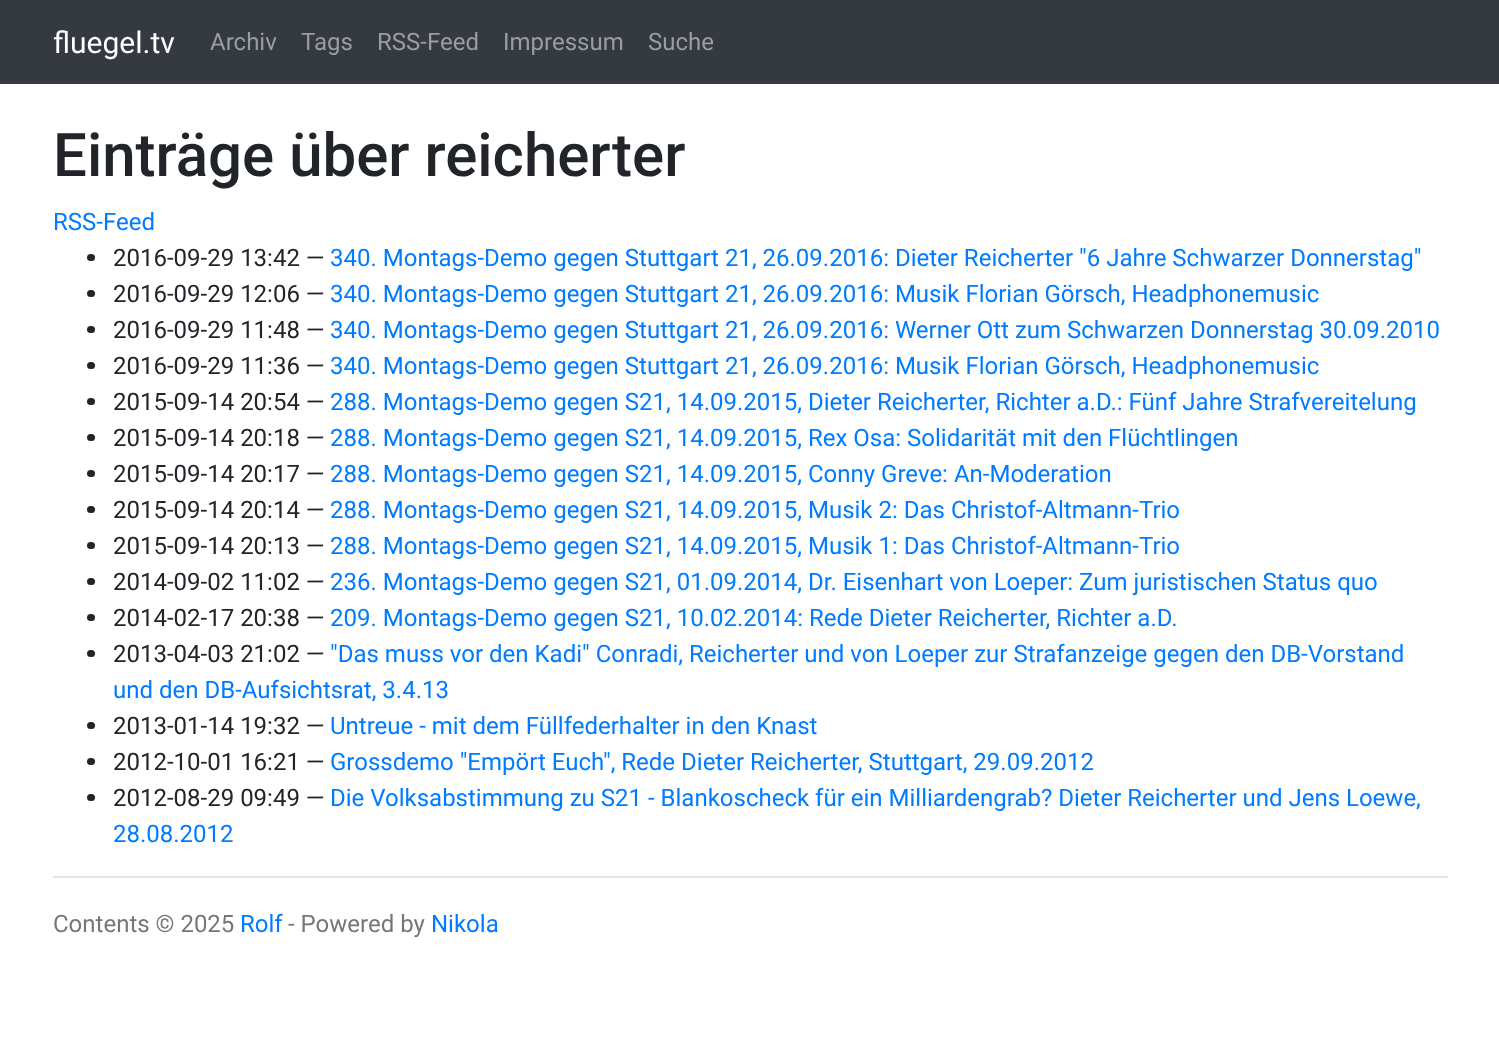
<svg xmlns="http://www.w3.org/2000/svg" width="1499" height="1049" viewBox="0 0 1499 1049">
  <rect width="100%" height="100%" fill="#ffffff"/>
  <rect x="0" y="0" width="1499" height="84" fill="#343a40"/>
  <text x="53" y="53" font-family="Roboto" font-size="30" fill="#ffffff">fluegel.tv</text>
  <text x="210" y="50" font-family="Roboto" font-size="24" fill="#9a9da0">Archiv</text>
  <text x="301" y="50" font-family="Roboto" font-size="24" fill="#9a9da0">Tags</text>
  <text x="377" y="50" font-family="Roboto" font-size="24" fill="#9a9da0">RSS-Feed</text>
  <text x="503" y="50" font-family="Roboto" font-size="24" fill="#9a9da0">Impressum</text>
  <text x="648" y="50" font-family="Roboto" font-size="24" fill="#9a9da0">Suche</text>
  <text x="53" y="176" font-family="Roboto" font-size="60" font-weight="500" fill="#212529">Einträge über reicherter</text>
  <text x="53" y="230" font-family="Roboto" font-size="24" fill="#007bff">RSS-Feed</text>
  <rect x="87" y="254" width="8" height="7" rx="3.5" fill="#212529"/>
  <text x="113" y="266" font-family="Roboto" font-size="24" fill="#212529">2016-09-29 13:42 —</text>
  <text x="330" y="266" font-family="Roboto" font-size="24" fill="#007bff">340. Montags-Demo gegen Stuttgart 21, 26.09.2016: Dieter Reicherter "6 Jahre Schwarzer Donnerstag"</text>
  <rect x="87" y="290" width="8" height="7" rx="3.5" fill="#212529"/>
  <text x="113" y="302" font-family="Roboto" font-size="24" fill="#212529">2016-09-29 12:06 —</text>
  <text x="330" y="302" font-family="Roboto" font-size="24" fill="#007bff">340. Montags-Demo gegen Stuttgart 21, 26.09.2016: Musik Florian Görsch, Headphonemusic</text>
  <rect x="87" y="326" width="8" height="7" rx="3.5" fill="#212529"/>
  <text x="113" y="338" font-family="Roboto" font-size="24" fill="#212529">2016-09-29 11:48 —</text>
  <text x="330" y="338" font-family="Roboto" font-size="24" fill="#007bff">340. Montags-Demo gegen Stuttgart 21, 26.09.2016: Werner Ott zum Schwarzen Donnerstag 30.09.2010</text>
  <rect x="87" y="362" width="8" height="7" rx="3.5" fill="#212529"/>
  <text x="113" y="374" font-family="Roboto" font-size="24" fill="#212529">2016-09-29 11:36 —</text>
  <text x="330" y="374" font-family="Roboto" font-size="24" fill="#007bff">340. Montags-Demo gegen Stuttgart 21, 26.09.2016: Musik Florian Görsch, Headphonemusic</text>
  <rect x="87" y="398" width="8" height="7" rx="3.5" fill="#212529"/>
  <text x="113" y="410" font-family="Roboto" font-size="24" fill="#212529">2015-09-14 20:54 —</text>
  <text x="330" y="410" font-family="Roboto" font-size="24" fill="#007bff">288. Montags-Demo gegen S21, 14.09.2015, Dieter Reicherter, Richter a.D.: Fünf Jahre Strafvereitelung</text>
  <rect x="87" y="434" width="8" height="7" rx="3.5" fill="#212529"/>
  <text x="113" y="446" font-family="Roboto" font-size="24" fill="#212529">2015-09-14 20:18 —</text>
  <text x="330" y="446" font-family="Roboto" font-size="24" fill="#007bff">288. Montags-Demo gegen S21, 14.09.2015, Rex Osa: Solidarität mit den Flüchtlingen</text>
  <rect x="87" y="470" width="8" height="7" rx="3.5" fill="#212529"/>
  <text x="113" y="482" font-family="Roboto" font-size="24" fill="#212529">2015-09-14 20:17 —</text>
  <text x="330" y="482" font-family="Roboto" font-size="24" fill="#007bff">288. Montags-Demo gegen S21, 14.09.2015, Conny Greve: An-Moderation</text>
  <rect x="87" y="506" width="8" height="7" rx="3.5" fill="#212529"/>
  <text x="113" y="518" font-family="Roboto" font-size="24" fill="#212529">2015-09-14 20:14 —</text>
  <text x="330" y="518" font-family="Roboto" font-size="24" fill="#007bff">288. Montags-Demo gegen S21, 14.09.2015, Musik 2: Das Christof-Altmann-Trio</text>
  <rect x="87" y="542" width="8" height="7" rx="3.5" fill="#212529"/>
  <text x="113" y="554" font-family="Roboto" font-size="24" fill="#212529">2015-09-14 20:13 —</text>
  <text x="330" y="554" font-family="Roboto" font-size="24" fill="#007bff">288. Montags-Demo gegen S21, 14.09.2015, Musik 1: Das Christof-Altmann-Trio</text>
  <rect x="87" y="578" width="8" height="7" rx="3.5" fill="#212529"/>
  <text x="113" y="590" font-family="Roboto" font-size="24" fill="#212529">2014-09-02 11:02 —</text>
  <text x="330" y="590" font-family="Roboto" font-size="24" fill="#007bff">236. Montags-Demo gegen S21, 01.09.2014, Dr. Eisenhart von Loeper: Zum juristischen Status quo</text>
  <rect x="87" y="614" width="8" height="7" rx="3.5" fill="#212529"/>
  <text x="113" y="626" font-family="Roboto" font-size="24" fill="#212529">2014-02-17 20:38 —</text>
  <text x="330" y="626" font-family="Roboto" font-size="24" fill="#007bff">209. Montags-Demo gegen S21, 10.02.2014: Rede Dieter Reicherter, Richter a.D.</text>
  <rect x="87" y="650" width="8" height="7" rx="3.5" fill="#212529"/>
  <text x="113" y="662" font-family="Roboto" font-size="24" fill="#212529">2013-04-03 21:02 —</text>
  <text x="330" y="662" font-family="Roboto" font-size="24" fill="#007bff">"Das muss vor den Kadi" Conradi, Reicherter und von Loeper zur Strafanzeige gegen den DB-Vorstand</text>
  <text x="113" y="698" font-family="Roboto" font-size="24" fill="#007bff">und den DB-Aufsichtsrat, 3.4.13</text>
  <rect x="87" y="722" width="8" height="7" rx="3.5" fill="#212529"/>
  <text x="113" y="734" font-family="Roboto" font-size="24" fill="#212529">2013-01-14 19:32 —</text>
  <text x="330" y="734" font-family="Roboto" font-size="24" fill="#007bff">Untreue - mit dem Füllfederhalter in den Knast</text>
  <rect x="87" y="758" width="8" height="7" rx="3.5" fill="#212529"/>
  <text x="113" y="770" font-family="Roboto" font-size="24" fill="#212529">2012-10-01 16:21 —</text>
  <text x="330" y="770" font-family="Roboto" font-size="24" fill="#007bff">Grossdemo "Empört Euch", Rede Dieter Reicherter, Stuttgart, 29.09.2012</text>
  <rect x="87" y="794" width="8" height="7" rx="3.5" fill="#212529"/>
  <text x="113" y="806" font-family="Roboto" font-size="24" fill="#212529">2012-08-29 09:49 —</text>
  <text x="330" y="806" font-family="Roboto" font-size="24" fill="#007bff">Die Volksabstimmung zu S21 - Blankoscheck für ein Milliardengrab? Dieter Reicherter und Jens Loewe,</text>
  <text x="113" y="842" font-family="Roboto" font-size="24" fill="#007bff">28.08.2012</text>
  <rect x="53" y="876" width="1395" height="2" fill="#e5e5e5"/>
  <text x="53" y="932" font-family="Roboto" font-size="24" fill="#777777">Contents © 2025</text>
  <text x="240" y="932" font-family="Roboto" font-size="24" fill="#007bff">Rolf</text>
  <text x="288" y="932" font-family="Roboto" font-size="24" fill="#777777">- Powered by</text>
  <text x="431" y="932" font-family="Roboto" font-size="24" fill="#007bff">Nikola</text>
</svg>
